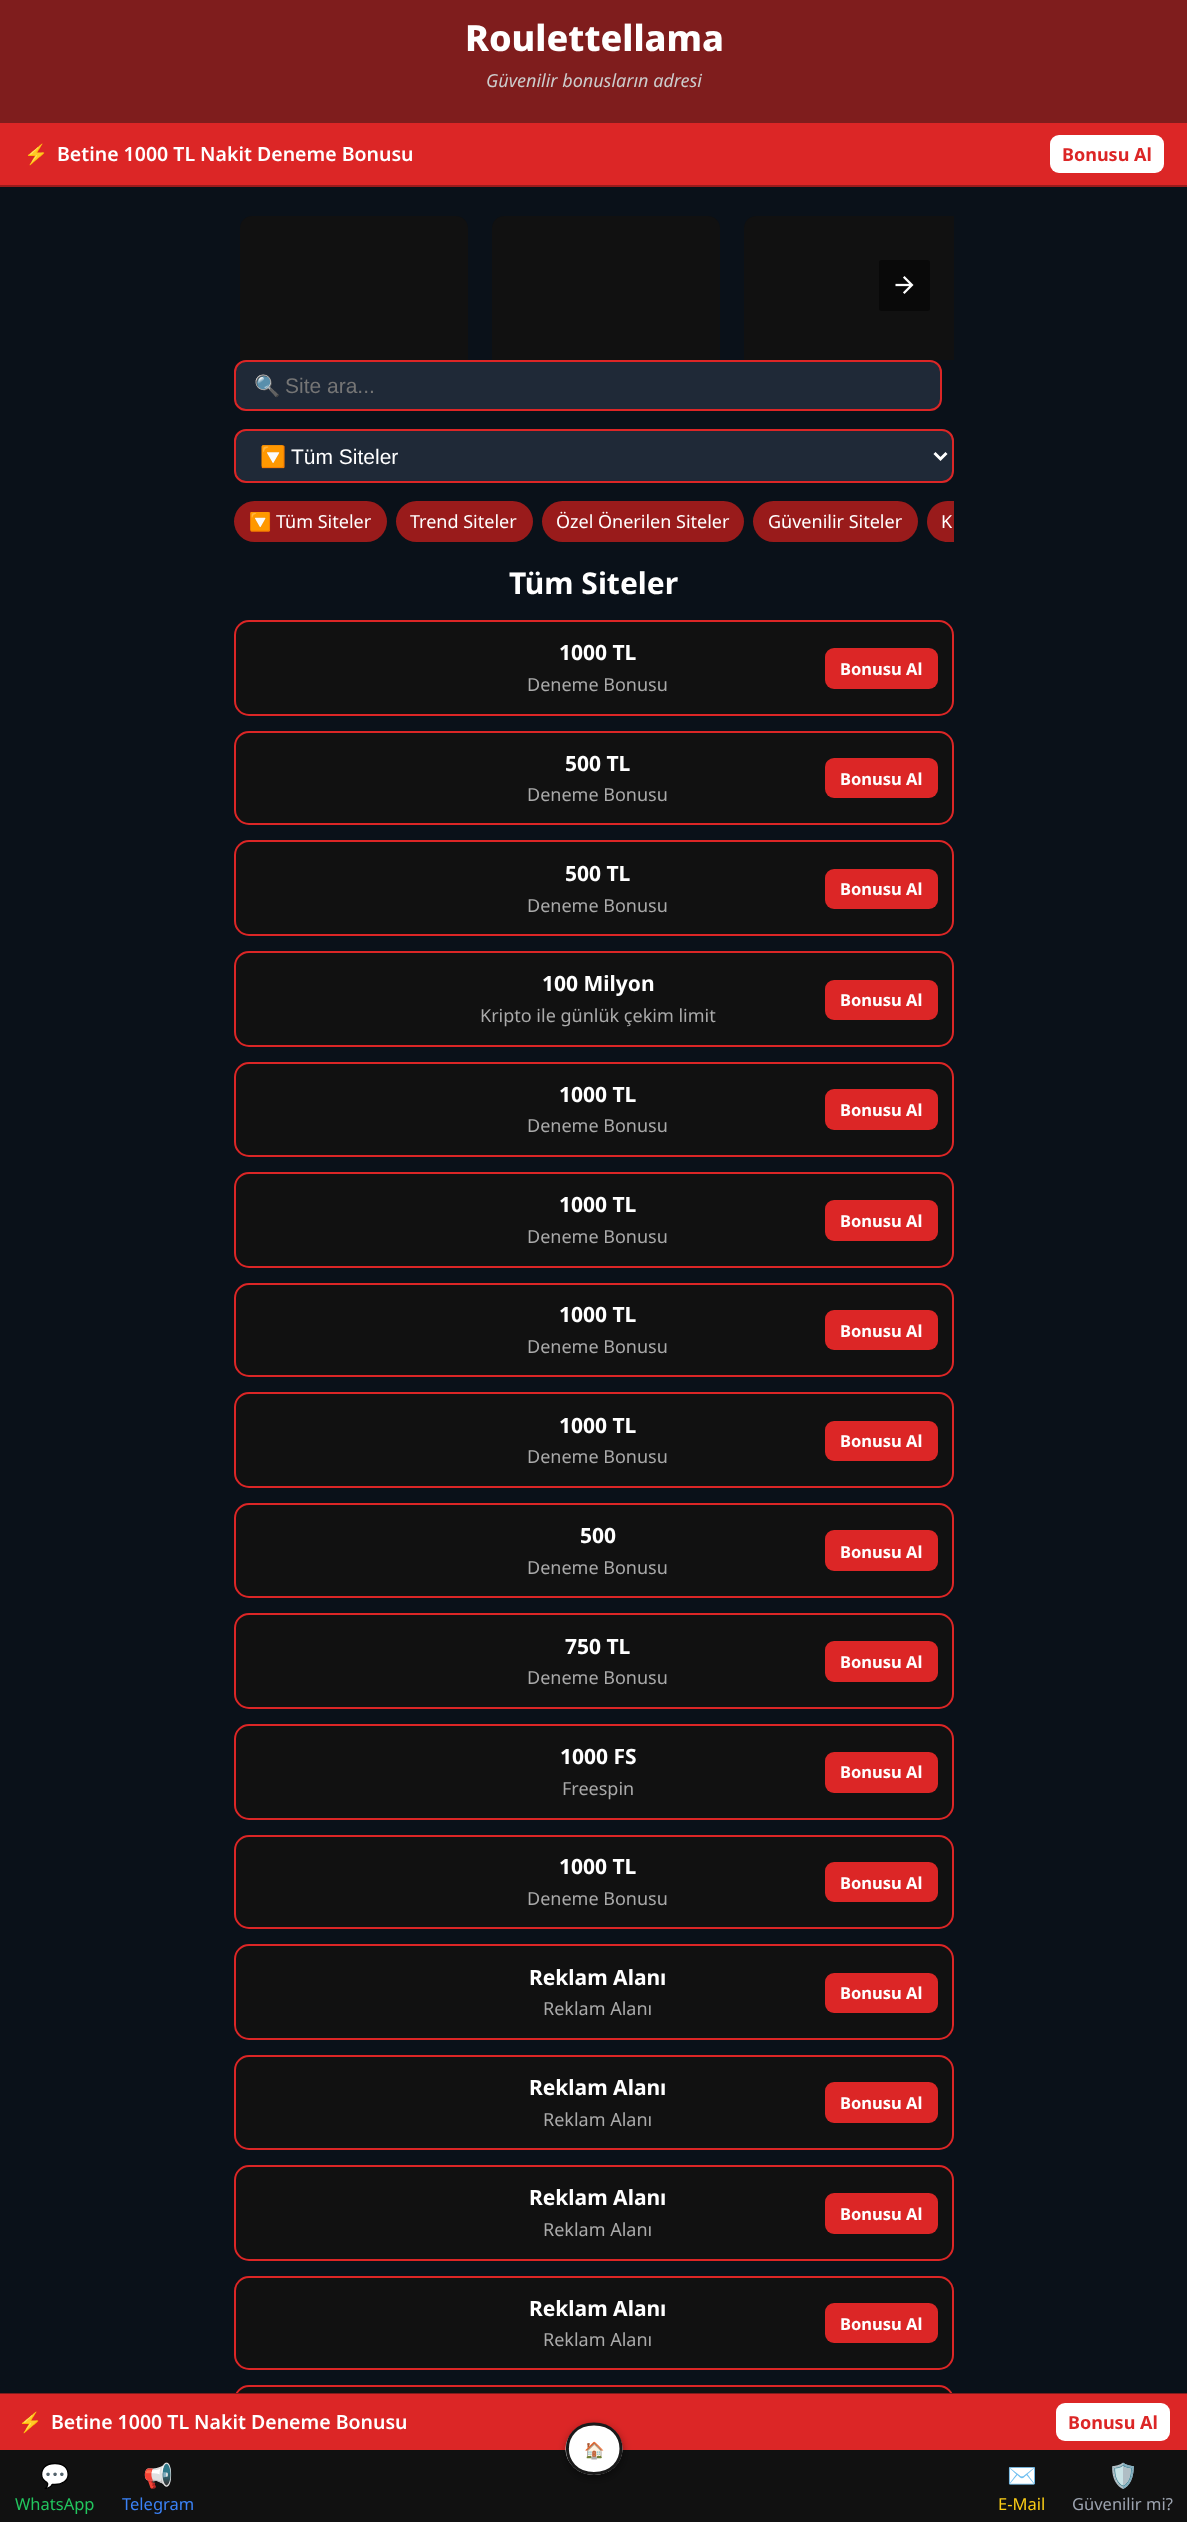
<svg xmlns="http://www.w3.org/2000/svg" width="1187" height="2522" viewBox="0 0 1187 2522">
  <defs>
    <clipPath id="clip1"><rect x="254" y="374" width="669" height="24"/></clipPath>
    <clipPath id="clip2"><rect x="260" y="443" width="651" height="27"/></clipPath>
    <filter id="blur1" x="-50%" y="-200%" width="200%" height="500%"><feGaussianBlur stdDeviation="4.5"/></filter>
  </defs>
  <rect width="100%" height="100%" fill="#0a1119"/>
  <rect x="0" y="0" width="1187" height="123" fill="#7f1d1d"/>
  <rect x="0" y="185" width="1187" height="2" fill="#991b1b"/>
  <text x="465" y="51" font-family="Noto Sans" font-size="36" font-weight="800" fill="#ffffff">Roulettellama</text>
  <text x="486" y="87" font-family="Noto Sans" font-size="18" font-style="italic" fill="#cccccc">Güvenilir bonusların adresi</text>
  <rect x="0" y="123" width="1187" height="62" fill="#dc2626"/>
  <text x="24" y="161" font-family="Noto Color Emoji" font-size="19.5" font-weight="bold" fill="#ffffff">⚡</text>
  <text x="57" y="161" font-family="Noto Sans" font-size="19.5" font-weight="600" fill="#ffffff">Betine 1000 TL Nakit Deneme Bonusu</text>
  <rect x="1050" y="135" width="114" height="38" rx="9" fill="#ffffff"/>
  <text x="1062" y="161" font-family="Noto Sans" font-size="18" font-weight="bold" fill="#dc2626">Bonusu Al</text>
  <path d="M252 216H456C462.5 216 468 221.5 468 228V360H240V228C240 221.5 245.5 216 252 216Z" fill="#111111"/>
  <path d="M504 216H708C714.5 216 720 221.5 720 228V360H492V228C492 221.5 497.5 216 504 216Z" fill="#111111"/>
  <path d="M756 216H954V360H744V228C744 221.5 749.5 216 756 216Z" fill="#111111"/>
  <rect x="879" y="260" width="51" height="51" rx="3" fill="#090909"/>
  <image x="895" y="276" width="19" height="18" href="img1.png"/>
  <rect x="235" y="361" width="706" height="49" rx="11" fill="#1f2937" stroke="#dc2626" stroke-width="2"/>
  <g clip-path="url(#clip1)">
    <text x="254" y="393" font-family="Noto Color Emoji" font-size="21" fill="#757575">🔍</text>
  </g>
  <text x="285" y="393" font-family="Liberation Sans" font-size="21" fill="#757575">Site ara...</text>
  <rect x="235" y="430" width="718" height="52" rx="11" fill="#1f2937" stroke="#dc2626" stroke-width="2"/>
  <path d="M934.5 453L940.5 459L946.5 453" fill="none" stroke="#ffffff" stroke-width="3"/>
  <g clip-path="url(#clip2)">
    <text x="260" y="464" font-family="Noto Color Emoji" font-size="21" fill="#ffffff">🔽</text>
  </g>
  <text x="291" y="464" font-family="Liberation Sans" font-size="21" fill="#ffffff">Tüm Siteler</text>
  <rect x="234" y="501" width="153" height="41" rx="20.5" fill="#991b1b"/>
  <text x="249" y="528" font-family="Noto Color Emoji" font-size="18" fill="#ffffff">🔽</text>
  <text x="276" y="528" font-family="Noto Sans" font-size="18" fill="#ffffff">Tüm Siteler</text>
  <rect x="396" y="501" width="137" height="41" rx="20.5" fill="#991b1b"/>
  <text x="410" y="528" font-family="Noto Sans" font-size="18" fill="#ffffff">Trend Siteler</text>
  <rect x="542" y="501" width="202" height="41" rx="20.5" fill="#991b1b"/>
  <text x="556" y="528" font-family="Noto Sans" font-size="18" fill="#ffffff">Özel Önerilen Siteler</text>
  <rect x="753" y="501" width="165" height="41" rx="20.5" fill="#991b1b"/>
  <text x="768" y="528" font-family="Noto Sans" font-size="18" fill="#ffffff">Güvenilir Siteler</text>
  <path d="M947.5 501H954V542H947.5C936 542 927 533 927 521.5C927 510 936 501 947.5 501Z" fill="#991b1b"/>
  <text x="941" y="528" font-family="Noto Sans" font-size="18" fill="#ffffff">K</text>
  <text x="509" y="594" font-family="Noto Sans" font-size="30" font-weight="bold" fill="#ffffff">Tüm Siteler</text>
  <rect x="235" y="621" width="718" height="94" rx="14" fill="#111111" stroke="#dc2626" stroke-width="2"/>
  <text x="559" y="660" font-family="Noto Sans" font-size="21" font-weight="bold" fill="#ffffff">1000 TL</text>
  <text x="527" y="691" font-family="Noto Sans" font-size="18" fill="#aaaaaa">Deneme Bonusu</text>
  <rect x="825" y="648" width="113" height="41" rx="9" fill="#dc2626"/>
  <text x="840" y="675" font-family="Noto Sans" font-size="16.5" font-weight="bold" fill="#ffffff">Bonusu Al</text>
  <rect x="235" y="732" width="718" height="92" rx="14" fill="#111111" stroke="#dc2626" stroke-width="2"/>
  <text x="565" y="771" font-family="Noto Sans" font-size="21" font-weight="bold" fill="#ffffff">500 TL</text>
  <text x="527" y="801" font-family="Noto Sans" font-size="18" fill="#aaaaaa">Deneme Bonusu</text>
  <rect x="825" y="758" width="113" height="40" rx="9" fill="#dc2626"/>
  <text x="840" y="785" font-family="Noto Sans" font-size="16.5" font-weight="bold" fill="#ffffff">Bonusu Al</text>
  <rect x="235" y="841" width="718" height="94" rx="14" fill="#111111" stroke="#dc2626" stroke-width="2"/>
  <text x="565" y="881" font-family="Noto Sans" font-size="21" font-weight="bold" fill="#ffffff">500 TL</text>
  <text x="527" y="912" font-family="Noto Sans" font-size="18" fill="#aaaaaa">Deneme Bonusu</text>
  <rect x="825" y="869" width="113" height="40" rx="9" fill="#dc2626"/>
  <text x="840" y="895" font-family="Noto Sans" font-size="16.5" font-weight="bold" fill="#ffffff">Bonusu Al</text>
  <rect x="235" y="952" width="718" height="94" rx="14" fill="#111111" stroke="#dc2626" stroke-width="2"/>
  <text x="542" y="991" font-family="Noto Sans" font-size="21" font-weight="bold" fill="#ffffff">100 Milyon</text>
  <text x="480" y="1022" font-family="Noto Sans" font-size="18" fill="#aaaaaa">Kripto ile günlük çekim limit</text>
  <rect x="825" y="980" width="113" height="40" rx="9" fill="#dc2626"/>
  <text x="840" y="1006" font-family="Noto Sans" font-size="16.5" font-weight="bold" fill="#ffffff">Bonusu Al</text>
  <rect x="235" y="1063" width="718" height="93" rx="14" fill="#111111" stroke="#dc2626" stroke-width="2"/>
  <text x="559" y="1102" font-family="Noto Sans" font-size="21" font-weight="bold" fill="#ffffff">1000 TL</text>
  <text x="527" y="1132" font-family="Noto Sans" font-size="18" fill="#aaaaaa">Deneme Bonusu</text>
  <rect x="825" y="1089" width="113" height="41" rx="9" fill="#dc2626"/>
  <text x="840" y="1116" font-family="Noto Sans" font-size="16.5" font-weight="bold" fill="#ffffff">Bonusu Al</text>
  <rect x="235" y="1173" width="718" height="94" rx="14" fill="#111111" stroke="#dc2626" stroke-width="2"/>
  <text x="559" y="1212" font-family="Noto Sans" font-size="21" font-weight="bold" fill="#ffffff">1000 TL</text>
  <text x="527" y="1243" font-family="Noto Sans" font-size="18" fill="#aaaaaa">Deneme Bonusu</text>
  <rect x="825" y="1200" width="113" height="41" rx="9" fill="#dc2626"/>
  <text x="840" y="1227" font-family="Noto Sans" font-size="16.5" font-weight="bold" fill="#ffffff">Bonusu Al</text>
  <rect x="235" y="1284" width="718" height="92" rx="14" fill="#111111" stroke="#dc2626" stroke-width="2"/>
  <text x="559" y="1322" font-family="Noto Sans" font-size="21" font-weight="bold" fill="#ffffff">1000 TL</text>
  <text x="527" y="1353" font-family="Noto Sans" font-size="18" fill="#aaaaaa">Deneme Bonusu</text>
  <rect x="825" y="1310" width="113" height="40" rx="9" fill="#dc2626"/>
  <text x="840" y="1337" font-family="Noto Sans" font-size="16.5" font-weight="bold" fill="#ffffff">Bonusu Al</text>
  <rect x="235" y="1393" width="718" height="94" rx="14" fill="#111111" stroke="#dc2626" stroke-width="2"/>
  <text x="559" y="1433" font-family="Noto Sans" font-size="21" font-weight="bold" fill="#ffffff">1000 TL</text>
  <text x="527" y="1463" font-family="Noto Sans" font-size="18" fill="#aaaaaa">Deneme Bonusu</text>
  <rect x="825" y="1421" width="113" height="40" rx="9" fill="#dc2626"/>
  <text x="840" y="1447" font-family="Noto Sans" font-size="16.5" font-weight="bold" fill="#ffffff">Bonusu Al</text>
  <rect x="235" y="1504" width="718" height="93" rx="14" fill="#111111" stroke="#dc2626" stroke-width="2"/>
  <text x="580" y="1543" font-family="Noto Sans" font-size="21" font-weight="bold" fill="#ffffff">500</text>
  <text x="527" y="1574" font-family="Noto Sans" font-size="18" fill="#aaaaaa">Deneme Bonusu</text>
  <rect x="825" y="1530" width="113" height="41" rx="9" fill="#dc2626"/>
  <text x="840" y="1558" font-family="Noto Sans" font-size="16.5" font-weight="bold" fill="#ffffff">Bonusu Al</text>
  <rect x="235" y="1614" width="718" height="94" rx="14" fill="#111111" stroke="#dc2626" stroke-width="2"/>
  <text x="565" y="1654" font-family="Noto Sans" font-size="21" font-weight="bold" fill="#ffffff">750 TL</text>
  <text x="527" y="1684" font-family="Noto Sans" font-size="18" fill="#aaaaaa">Deneme Bonusu</text>
  <rect x="825" y="1641" width="113" height="41" rx="9" fill="#dc2626"/>
  <text x="840" y="1668" font-family="Noto Sans" font-size="16.5" font-weight="bold" fill="#ffffff">Bonusu Al</text>
  <rect x="235" y="1725" width="718" height="94" rx="14" fill="#111111" stroke="#dc2626" stroke-width="2"/>
  <text x="560" y="1764" font-family="Noto Sans" font-size="21" font-weight="bold" fill="#ffffff">1000 FS</text>
  <text x="562" y="1795" font-family="Noto Sans" font-size="18" fill="#aaaaaa">Freespin</text>
  <rect x="825" y="1752" width="113" height="41" rx="9" fill="#dc2626"/>
  <text x="840" y="1778" font-family="Noto Sans" font-size="16.5" font-weight="bold" fill="#ffffff">Bonusu Al</text>
  <rect x="235" y="1836" width="718" height="92" rx="14" fill="#111111" stroke="#dc2626" stroke-width="2"/>
  <text x="559" y="1874" font-family="Noto Sans" font-size="21" font-weight="bold" fill="#ffffff">1000 TL</text>
  <text x="527" y="1905" font-family="Noto Sans" font-size="18" fill="#aaaaaa">Deneme Bonusu</text>
  <rect x="825" y="1862" width="113" height="40" rx="9" fill="#dc2626"/>
  <text x="840" y="1889" font-family="Noto Sans" font-size="16.5" font-weight="bold" fill="#ffffff">Bonusu Al</text>
  <rect x="235" y="1945" width="718" height="94" rx="14" fill="#111111" stroke="#dc2626" stroke-width="2"/>
  <text x="529" y="1985" font-family="Noto Sans" font-size="21" font-weight="bold" fill="#ffffff">Reklam Alanı</text>
  <text x="543" y="2015" font-family="Noto Sans" font-size="18" fill="#aaaaaa">Reklam Alanı</text>
  <rect x="825" y="1973" width="113" height="40" rx="9" fill="#dc2626"/>
  <text x="840" y="1999" font-family="Noto Sans" font-size="16.5" font-weight="bold" fill="#ffffff">Bonusu Al</text>
  <rect x="235" y="2056" width="718" height="93" rx="14" fill="#111111" stroke="#dc2626" stroke-width="2"/>
  <text x="529" y="2095" font-family="Noto Sans" font-size="21" font-weight="bold" fill="#ffffff">Reklam Alanı</text>
  <text x="543" y="2126" font-family="Noto Sans" font-size="18" fill="#aaaaaa">Reklam Alanı</text>
  <rect x="825" y="2082" width="113" height="41" rx="9" fill="#dc2626"/>
  <text x="840" y="2109" font-family="Noto Sans" font-size="16.5" font-weight="bold" fill="#ffffff">Bonusu Al</text>
  <rect x="235" y="2166" width="718" height="94" rx="14" fill="#111111" stroke="#dc2626" stroke-width="2"/>
  <text x="529" y="2205" font-family="Noto Sans" font-size="21" font-weight="bold" fill="#ffffff">Reklam Alanı</text>
  <text x="543" y="2236" font-family="Noto Sans" font-size="18" fill="#aaaaaa">Reklam Alanı</text>
  <rect x="825" y="2193" width="113" height="41" rx="9" fill="#dc2626"/>
  <text x="840" y="2220" font-family="Noto Sans" font-size="16.5" font-weight="bold" fill="#ffffff">Bonusu Al</text>
  <rect x="235" y="2277" width="718" height="92" rx="14" fill="#111111" stroke="#dc2626" stroke-width="2"/>
  <text x="529" y="2316" font-family="Noto Sans" font-size="21" font-weight="bold" fill="#ffffff">Reklam Alanı</text>
  <text x="543" y="2346" font-family="Noto Sans" font-size="18" fill="#aaaaaa">Reklam Alanı</text>
  <rect x="825" y="2303" width="113" height="40" rx="9" fill="#dc2626"/>
  <text x="840" y="2330" font-family="Noto Sans" font-size="16.5" font-weight="bold" fill="#ffffff">Bonusu Al</text>
  <rect x="235" y="2386" width="718" height="94" rx="14" fill="#111111" stroke="#dc2626" stroke-width="2"/>
  <rect x="0" y="2393" width="1187" height="1" fill="#7f1d1d"/>
  <rect x="0" y="2394" width="1187" height="56" fill="#dc2626"/>
  <text x="18" y="2429" font-family="Noto Color Emoji" font-size="19.5" font-weight="bold" fill="#ffffff">⚡</text>
  <text x="51" y="2429" font-family="Noto Sans" font-size="19.5" font-weight="600" fill="#ffffff">Betine 1000 TL Nakit Deneme Bonusu</text>
  <rect x="1056" y="2403" width="114" height="38" rx="9" fill="#ffffff"/>
  <text x="1068" y="2429" font-family="Noto Sans" font-size="18" font-weight="bold" fill="#dc2626">Bonusu Al</text>
  <rect x="0" y="2450" width="1187" height="72" fill="#111111"/>
  <rect x="566" y="2426" width="57" height="52" rx="26" fill="#000000" fill-opacity="0.4" filter="url(#blur1)"/>
  <ellipse cx="594" cy="2449" rx="28.5" ry="26" fill="#ffffff"/>
  <path d="M594 2424C630 2424 630 2473.5 594 2473.5C558.5 2473.5 558.5 2424 594 2424Z" fill="none" stroke="#1a1a1a" stroke-width="3"/>
  <text x="584" y="2456" font-family="Noto Color Emoji" font-size="16.5" font-weight="bold" fill="#dc2626">🏠</text>
  <text x="40" y="2484" font-family="Noto Color Emoji" font-size="24" fill="#22c55e">💬</text>
  <text x="15" y="2510" font-family="Noto Sans" font-size="16.5" fill="#22c55e">WhatsApp</text>
  <text x="143" y="2484" font-family="Noto Color Emoji" font-size="24" fill="#3b82f6">📢</text>
  <text x="122" y="2510" font-family="Noto Sans" font-size="16.5" fill="#3b82f6">Telegram</text>
  <text x="1007" y="2484" font-family="Noto Color Emoji" font-size="24" fill="#facc15">✉️</text>
  <text x="998" y="2510" font-family="Noto Sans" font-size="16.5" fill="#facc15">E-Mail</text>
  <text x="1108" y="2484" font-family="Noto Color Emoji" font-size="24" fill="#9ca3af">🛡️</text>
  <text x="1072" y="2510" font-family="Noto Sans" font-size="16.5" fill="#9ca3af">Güvenilir mi?</text>
</svg>
